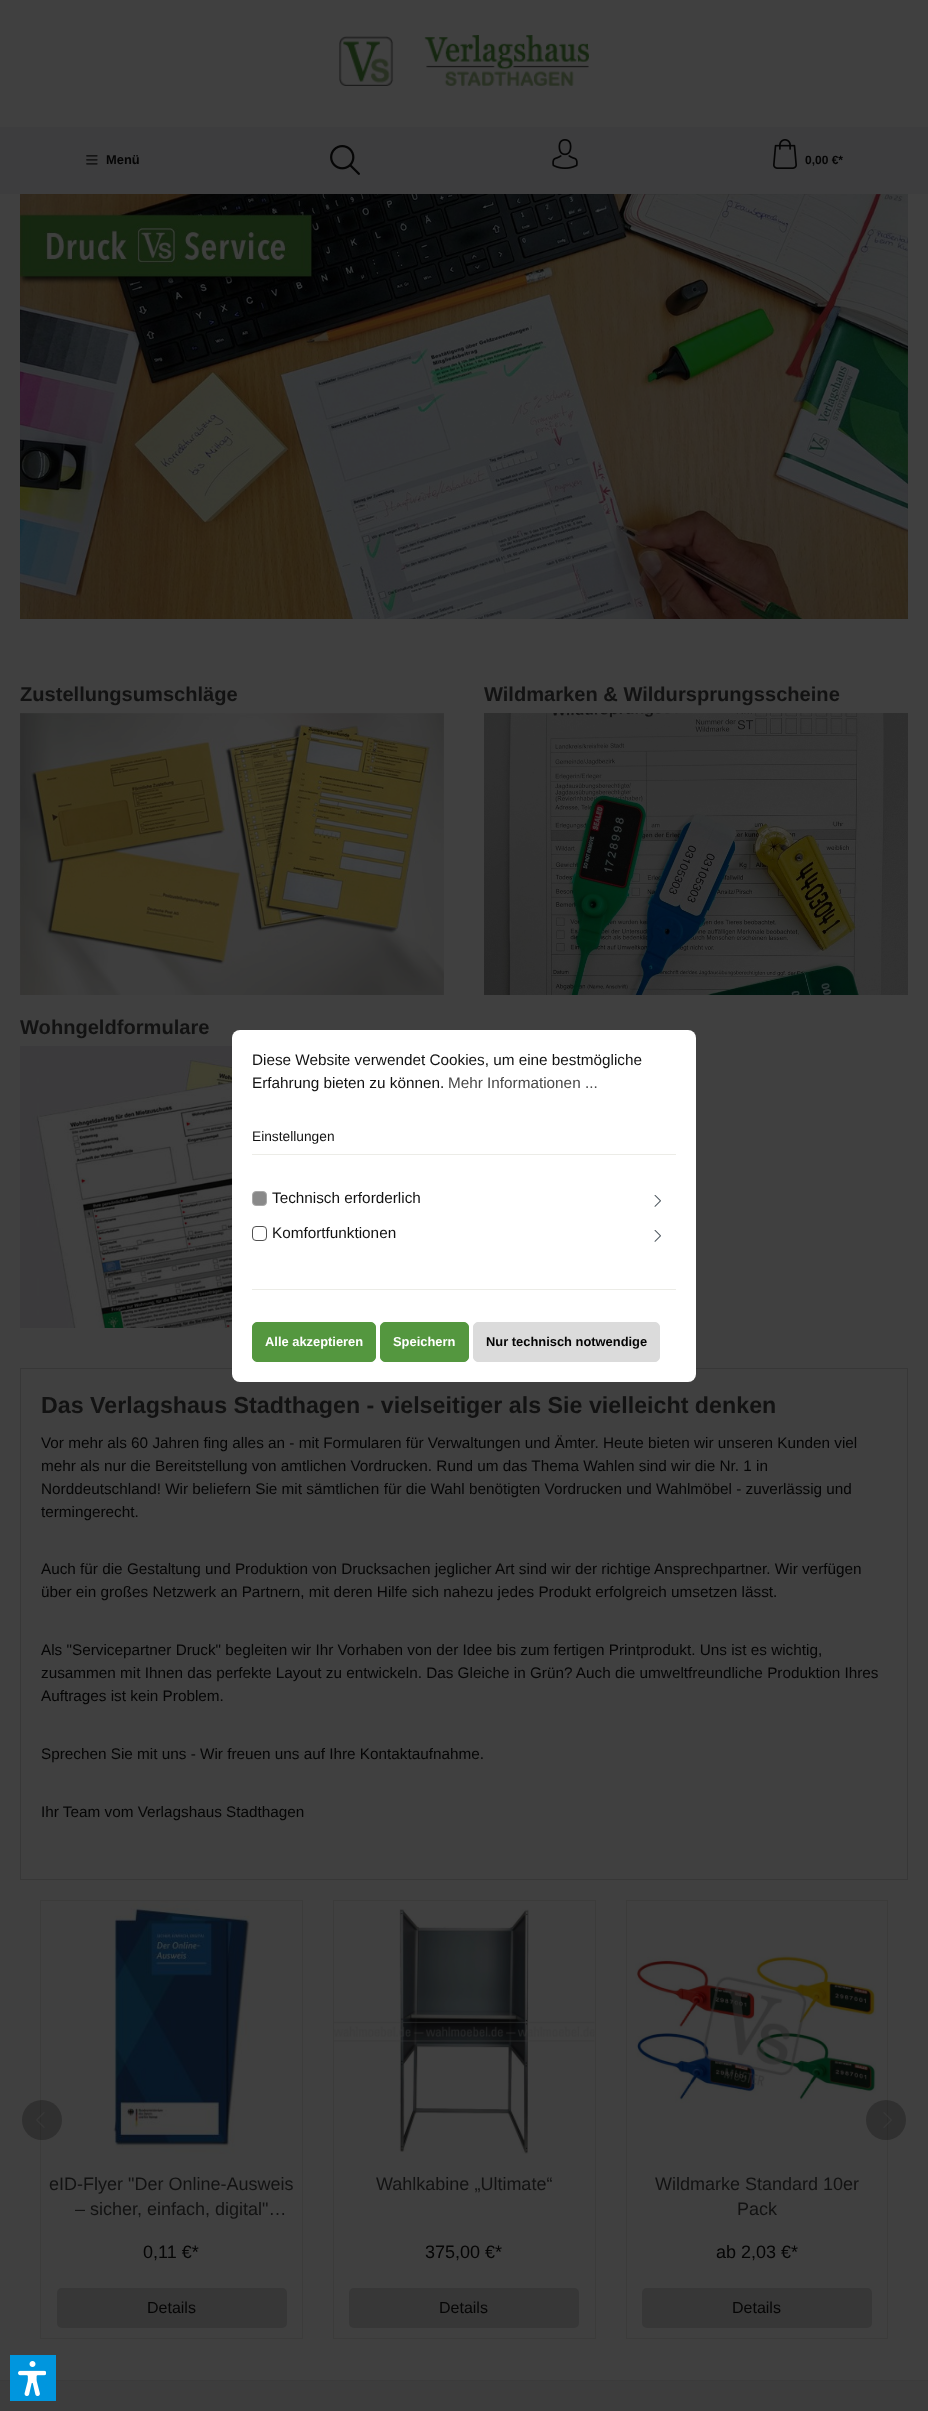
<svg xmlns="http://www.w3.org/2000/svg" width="928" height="2411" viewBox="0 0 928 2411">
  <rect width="100%" height="100%" fill="#404040"/>
  <image x="339" y="35" width="250" height="51" href="img1.png"/>
  <rect x="0" y="127" width="928" height="67" fill="#3d3d3e"/>
  <image x="86" y="155" width="12" height="10" href="img2.png"/>
  <text x="106" y="164" font-family="Liberation Sans" font-size="12.9" font-weight="bold" fill="#050505">Menü</text>
  <image x="330" y="145" width="30" height="30" href="img3.png"/>
  <image x="552" y="139" width="26" height="30" href="img4.png"/>
  <image x="773" y="139" width="24" height="30" href="img5.png"/>
  <text x="805" y="164" font-family="Liberation Sans" font-size="12" font-weight="bold" fill="#050505">0,00 €*</text>
  <image x="20" y="194" width="888" height="425" href="img6.png"/>
  <text x="20" y="701" font-family="Liberation Sans" font-size="20.1" font-weight="bold" fill="#121212">Zustellungsumschläge</text>
  <image x="20" y="713" width="424" height="282" href="img7.png"/>
  <text x="484" y="701" font-family="Liberation Sans" font-size="20.1" font-weight="bold" fill="#121212">Wildmarken &amp; Wildursprungsscheine</text>
  <image x="484" y="713" width="424" height="282" href="img8.png"/>
  <text x="20" y="1034" font-family="Liberation Sans" font-size="20.1" font-weight="bold" fill="#121212">Wohngeldformulare</text>
  <image x="20" y="1046" width="212" height="282" href="img9.png"/>
  <rect x="20.5" y="1368.5" width="887" height="511" fill="none" stroke="#373737"/>
  <text x="41" y="1413" font-family="Liberation Sans" font-size="23.25" font-weight="bold" fill="#121212">Das Verlagshaus Stadthagen - vielseitiger als Sie vielleicht denken</text>
  <text x="41" y="1448" font-family="Liberation Sans" font-size="15.3" fill="#050505">Vor mehr als 60 Jahren fing alles an - mit Formularen für Verwaltungen und Ämter. Heute bieten wir unseren Kunden viel</text>
  <text x="41" y="1471" font-family="Liberation Sans" font-size="15.3" fill="#050505">mehr als nur die Bereitstellung von amtlichen Vordrucken. Rund um das Thema Wahlen sind wir die Nr. 1 in</text>
  <text x="41" y="1494" font-family="Liberation Sans" font-size="15.3" fill="#050505">Norddeutschland! Wir beliefern Sie mit sämtlichen für die Wahl benötigten Vordrucken und Wahlmöbel - zuverlässig und</text>
  <text x="41" y="1517" font-family="Liberation Sans" font-size="15.3" fill="#050505">termingerecht.</text>
  <text x="41" y="1574" font-family="Liberation Sans" font-size="15.3" fill="#050505">Auch für die Gestaltung und Produktion von Drucksachen jeglicher Art sind wir der richtige Ansprechpartner. Wir verfügen</text>
  <text x="41" y="1597" font-family="Liberation Sans" font-size="15.3" fill="#050505">über ein großes Netzwerk an Partnern, mit deren Hilfe sich nahezu jedes Produkt erfolgreich umsetzen lässt.</text>
  <text x="41" y="1655" font-family="Liberation Sans" font-size="15.3" fill="#050505">Als "Servicepartner Druck" begleiten wir Ihr Vorhaben von der Idee bis zum fertigen Printprodukt. Uns ist es wichtig,</text>
  <text x="41" y="1678" font-family="Liberation Sans" font-size="15.3" fill="#050505">zusammen mit Ihnen das perfekte Layout zu entwickeln. Das Gleiche in Grün? Auch die umweltfreundliche Produktion Ihres</text>
  <text x="41" y="1701" font-family="Liberation Sans" font-size="15.3" fill="#050505">Auftrages ist kein Problem.</text>
  <text x="41" y="1759" font-family="Liberation Sans" font-size="15.3" fill="#050505">Sprechen Sie mit uns - Wir freuen uns auf Ihre Kontaktaufnahme.</text>
  <text x="41" y="1817" font-family="Liberation Sans" font-size="15.3" fill="#050505">Ihr Team vom Verlagshaus Stadthagen</text>
  <rect x="40.5" y="1900.5" width="262" height="438" fill="none" stroke="#3b3b3a"/>
  <circle cx="42" cy="2120" r="20" fill="#000000" fill-opacity="0.25"/>
  <image x="36" y="2112" width="9" height="16" href="img10.png"/>
  <rect x="626.5" y="1900.5" width="261" height="438" fill="none" stroke="#3b3b3a"/>
  <image x="635" y="1955" width="241" height="148" href="img14.png"/>
  <circle cx="886" cy="2120" r="20" fill="#000000" fill-opacity="0.25"/>
  <image x="883" y="2112" width="9" height="16" href="img11.png"/>
  <image x="113" y="1901" width="137" height="253" href="img12.png"/>
  <text x="49" y="2190" font-family="Liberation Sans" font-size="18" fill="#121212">eID-Flyer "Der Online-Ausweis</text>
  <text x="75" y="2215" font-family="Liberation Sans" font-size="18" fill="#121212">– sicher, einfach, digital"…</text>
  <text x="143" y="2258" font-family="Liberation Sans" font-size="18" fill="#050505">0,11 €*</text>
  <rect x="57" y="2288" width="230" height="40" rx="5" fill="#373737"/>
  <text x="147" y="2313" font-family="Liberation Sans" font-size="16" fill="#050505">Details</text>
  <rect x="333.5" y="1900.5" width="262" height="438" fill="none" stroke="#3b3b3a"/>
  <image x="334" y="1909" width="261" height="245" href="img13.png"/>
  <text x="376" y="2190" font-family="Liberation Sans" font-size="18" fill="#121212">Wahlkabine „Ultimate“</text>
  <text x="425" y="2258" font-family="Liberation Sans" font-size="18" fill="#050505">375,00 €*</text>
  <rect x="349" y="2288" width="230" height="40" rx="5" fill="#373737"/>
  <text x="439" y="2313" font-family="Liberation Sans" font-size="16" fill="#050505">Details</text>
  <text x="655" y="2190" font-family="Liberation Sans" font-size="18" fill="#121212">Wildmarke Standard 10er</text>
  <text x="737" y="2215" font-family="Liberation Sans" font-size="18" fill="#121212">Pack</text>
  <text x="716" y="2258" font-family="Liberation Sans" font-size="18" fill="#050505">ab 2,03 €*</text>
  <rect x="642" y="2288" width="230" height="40" rx="5" fill="#373737"/>
  <text x="732" y="2313" font-family="Liberation Sans" font-size="16" fill="#050505">Details</text>
  <rect x="232" y="1030" width="464" height="352" rx="8" fill="#ffffff"/>
  <rect x="252" y="1154" width="424" height="1" fill="#ecece7"/>
  <text x="252" y="1065" font-family="Liberation Sans" font-size="15.3" fill="#121212">Diese Website verwendet Cookies, um eine bestmögliche</text>
  <text x="252" y="1088" font-family="Liberation Sans" font-size="15.3" fill="#121212">Erfahrung bieten zu können.</text>
  <text x="448" y="1088" font-family="Liberation Sans" font-size="15.3" fill="#484848">Mehr Informationen ...</text>
  <text x="252" y="1141" font-family="Liberation Sans" font-size="13.75" fill="#121212">Einstellungen</text>
  <rect x="252" y="1289" width="424" height="1" fill="#ecece7"/>
  <rect x="252.5" y="1191.5" width="14" height="14" rx="3.5" fill="#898989" stroke="#a8a8a8"/>
  <text x="272" y="1203" font-family="Liberation Sans" font-size="15.3" fill="#121212">Technisch erforderlich</text>
  <image x="654" y="1195" width="7" height="12" href="img15.png"/>
  <rect x="252.5" y="1226.5" width="14" height="14" rx="3.5" fill="none" stroke="#515151"/>
  <text x="272" y="1238" font-family="Liberation Sans" font-size="15.3" fill="#121212">Komfortfunktionen</text>
  <image x="654" y="1230" width="7" height="12" href="img15.png"/>
  <rect x="252.5" y="1322.5" width="123" height="39" rx="4.5" fill="#54973f" stroke="#54973f"/>
  <text x="265" y="1346" font-family="Liberation Sans" font-size="12.9" font-weight="bold" fill="#ffffff">Alle akzeptieren</text>
  <rect x="380.5" y="1322.5" width="88" height="39" rx="4.5" fill="#54973f" stroke="#54973f"/>
  <text x="393" y="1346" font-family="Liberation Sans" font-size="12.9" font-weight="bold" fill="#ffffff">Speichern</text>
  <rect x="473.5" y="1322.5" width="186" height="39" rx="4.5" fill="#dbdbdb" stroke="#dbdbdb"/>
  <text x="486" y="1346" font-family="Liberation Sans" font-size="12.9" font-weight="bold" fill="#050505">Nur technisch notwendige</text>
  <rect x="0" y="2381" width="928" height="30" fill="#3d3d3d"/>
  <rect x="0" y="2380" width="928" height="1" fill="#3b3b3b"/>
  <rect x="10" y="2355" width="46" height="46" fill="#0096de"/>
  <image x="18" y="2361" width="28" height="35" href="img16.png"/>
</svg>
